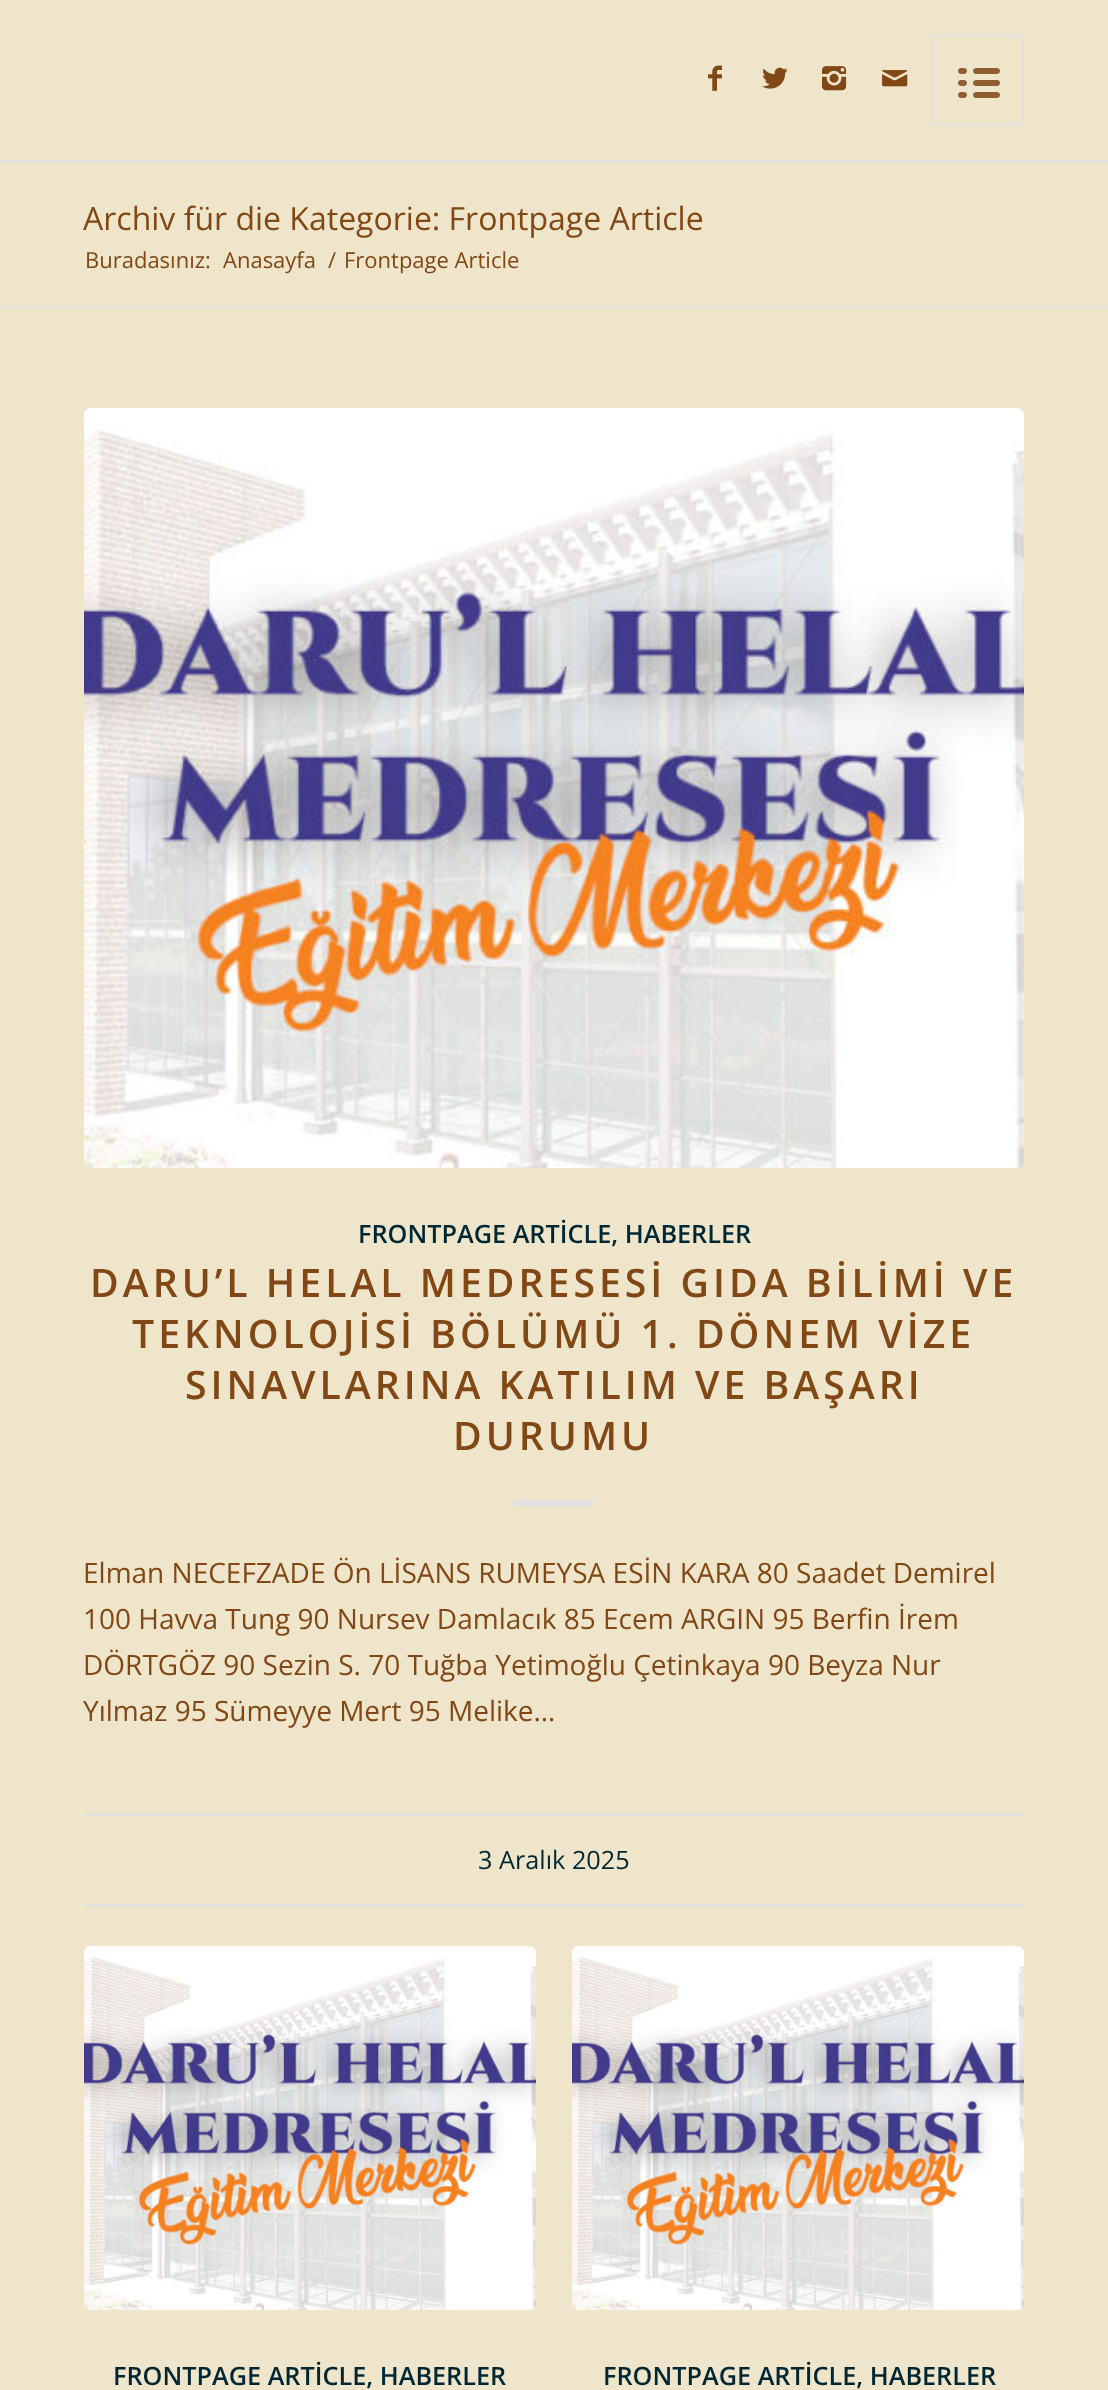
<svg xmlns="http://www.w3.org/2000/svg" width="1108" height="2390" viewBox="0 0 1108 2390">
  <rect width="100%" height="100%" fill="#eee5cb"/>
  <rect x="0" y="160" width="1108" height="2" fill="#e1e1e1"/>
  <image x="708" y="65" width="14" height="26" href="img1.png"/>
  <image x="762" y="67" width="26" height="22" href="img2.png"/>
  <image x="822" y="66" width="25" height="25" href="img3.png"/>
  <image x="882" y="70" width="26" height="17" href="img4.png"/>
  <rect x="933" y="35" width="90" height="90" rx="3" fill="none" stroke="#e1e1e1" stroke-width="2"/>
  <image x="958" y="68" width="42" height="30" href="img5.png"/>
  <text x="83" y="230" font-family="Open Sans" font-size="32" fill="#814714">Archiv für die Kategorie: Frontpage Article</text>
  <text x="85" y="268" font-family="Open Sans" font-size="22" fill="#814714">Buradasınız:</text>
  <text x="223" y="268" font-family="Open Sans" font-size="22" fill="#814714">Anasayfa</text>
  <text x="328" y="268" font-family="Open Sans" font-size="22" fill="#814714">/</text>
  <text x="344" y="268" font-family="Open Sans" font-size="22" fill="#814714">Frontpage Article</text>
  <rect x="0" y="306" width="1108" height="2" fill="#e1e1e1"/>
  <image x="84" y="408" width="940" height="760" href="img6.png"/>
  <text x="358" y="1243" font-family="Open Sans" font-size="25.25" font-weight="600" fill="#002733">FRONTPAGE ARTİCLE, HABERLER</text>
  <text x="90" y="1297" font-family="Open Sans" font-size="39.2" font-weight="600" letter-spacing="4" fill="#814714">DARU’L HELAL MEDRESESİ GIDA BİLİMİ VE</text>
  <text x="132" y="1348" font-family="Open Sans" font-size="39.2" font-weight="600" letter-spacing="4" fill="#814714">TEKNOLOJİSİ BÖLÜMÜ 1. DÖNEM VİZE</text>
  <text x="185" y="1399" font-family="Open Sans" font-size="39.2" font-weight="600" letter-spacing="4" fill="#814714">SINAVLARINA KATILIM VE BAŞARI</text>
  <text x="453" y="1450" font-family="Open Sans" font-size="39.2" font-weight="600" letter-spacing="4" fill="#814714">DURUMU</text>
  <rect x="514" y="1500" width="80" height="6" fill="#e1e1e1"/>
  <text x="83" y="1583" font-family="Open Sans" font-size="28" fill="#814714">Elman NECEFZADE Ön LİSANS RUMEYSA ESİN KARA 80 Saadet Demirel</text>
  <text x="83" y="1629" font-family="Open Sans" font-size="28" fill="#814714">100 Havva Tung 90 Nursev Damlacık 85 Ecem ARGIN 95 Berfin İrem</text>
  <text x="83" y="1675" font-family="Open Sans" font-size="28" fill="#814714">DÖRTGÖZ 90 Sezin S. 70 Tuğba Yetimoğlu Çetinkaya 90 Beyza Nur</text>
  <text x="83" y="1721" font-family="Open Sans" font-size="28" fill="#814714">Yılmaz 95 Sümeyye Mert 95 Melike…</text>
  <rect x="84" y="1814" width="940" height="2" fill="#e1e1e1"/>
  <rect x="84" y="1904" width="940" height="2" fill="#e1e1e1"/>
  <text x="478" y="1869" font-family="Open Sans" font-size="25.25" fill="#002733">3 Aralık 2025</text>
  <image x="84" y="1946" width="452" height="364" href="img7.png"/>
  <text x="113" y="2385" font-family="Open Sans" font-size="25.25" font-weight="600" fill="#002733">FRONTPAGE ARTİCLE, HABERLER</text>
  <image x="572" y="1946" width="452" height="364" href="img8.png"/>
  <text x="603" y="2385" font-family="Open Sans" font-size="25.25" font-weight="600" fill="#002733">FRONTPAGE ARTİCLE, HABERLER</text>
</svg>
